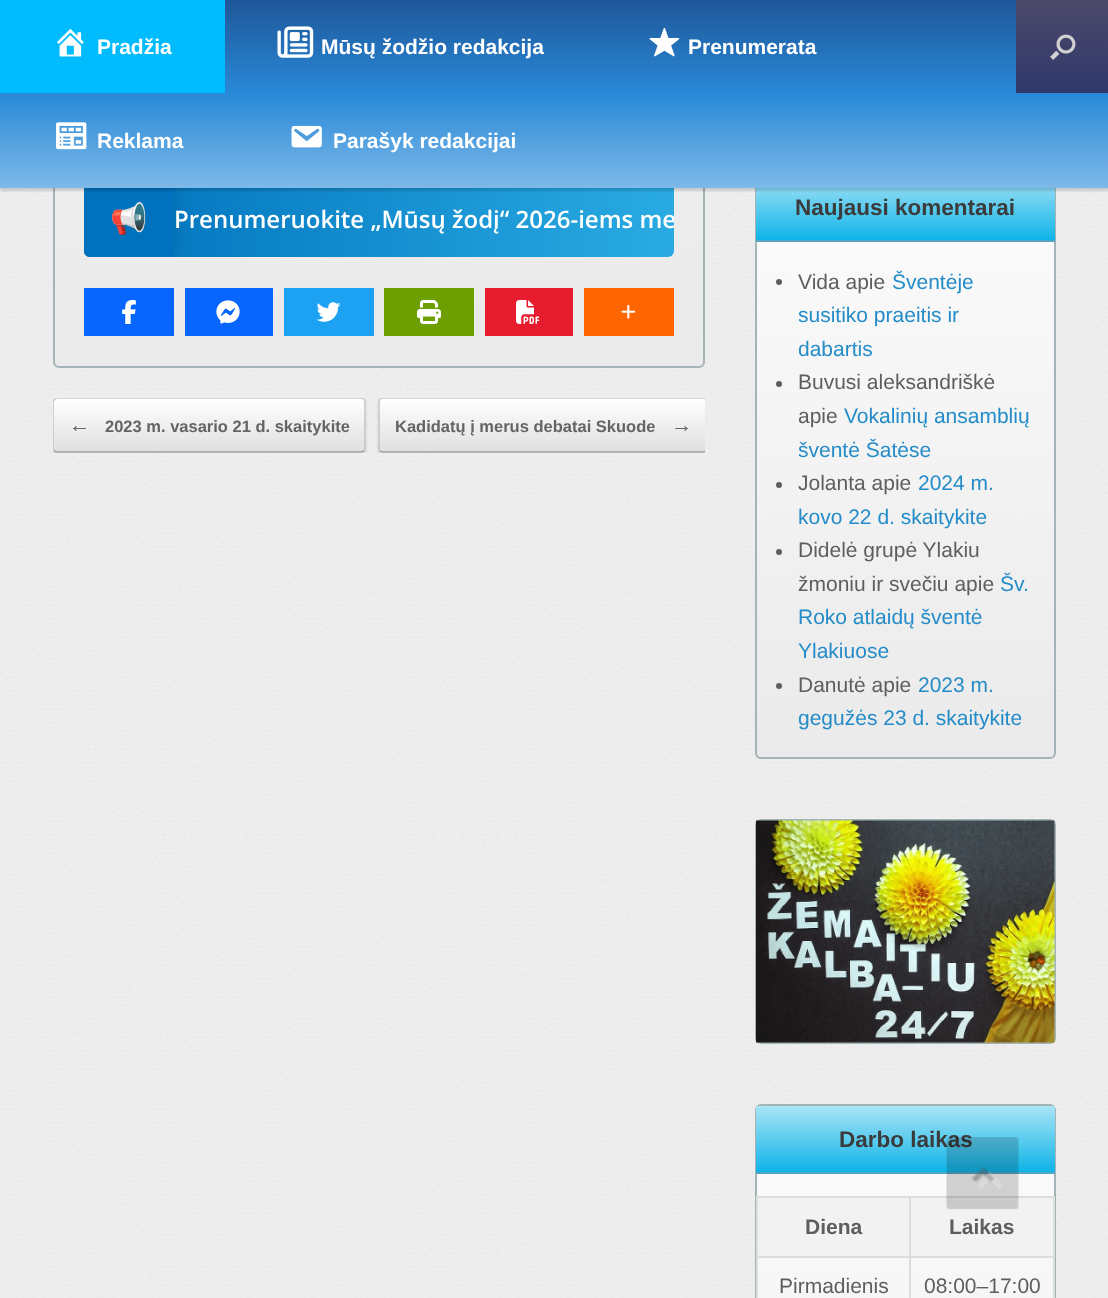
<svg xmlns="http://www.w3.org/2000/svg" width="1108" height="1298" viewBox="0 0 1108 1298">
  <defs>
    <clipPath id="clip1"><rect x="53" y="-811" width="652" height="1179" rx="6"/></clipPath>
    <linearGradient id="g1" gradientUnits="userSpaceOnUse" x1="379" y1="-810" x2="379" y2="366"><stop offset="0" stop-color="#fcfcfc"/><stop offset="1" stop-color="#eaeaea"/></linearGradient>
    <linearGradient id="g2" gradientUnits="userSpaceOnUse" x1="84" y1="219" x2="674" y2="219"><stop offset="0" stop-color="#0071bc"/><stop offset="1" stop-color="#29abe2"/></linearGradient>
    <clipPath id="clip2"><rect x="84" y="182" width="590" height="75" rx="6"/></clipPath>
    <filter id="blur1" x="-50%" y="-200%" width="200%" height="500%"><feGaussianBlur stdDeviation="7.5"/></filter>
    <clipPath id="clip3"><rect x="755" y="173" width="301" height="586" rx="6"/></clipPath>
    <linearGradient id="g3" gradientUnits="userSpaceOnUse" x1="905" y1="174" x2="905" y2="758"><stop offset="0" stop-color="#fcfcfc"/><stop offset="1" stop-color="#eaeaea"/></linearGradient>
    <linearGradient id="g4" gradientUnits="userSpaceOnUse" x1="905" y1="174" x2="905" y2="240"><stop offset="0" stop-color="#a9e4f7"/><stop offset="1" stop-color="#0fb4e7"/></linearGradient>
    <filter id="blur2" x="-50%" y="-200%" width="200%" height="500%"><feGaussianBlur stdDeviation="1"/></filter>
    <linearGradient id="g5" gradientUnits="userSpaceOnUse" x1="554" y1="0" x2="554" y2="188"><stop offset="0" stop-color="#1e5799"/><stop offset="0.5" stop-color="#2989d8"/><stop offset="1" stop-color="#7db9e8"/></linearGradient>
    <linearGradient id="g6" gradientUnits="userSpaceOnUse" x1="1062" y1="0" x2="1062" y2="93"><stop offset="0" stop-color="#4c496b"/><stop offset="1" stop-color="#2f386b"/></linearGradient>
    <clipPath id="clip4"><rect x="84" y="182" width="590" height="75" rx="6"/></clipPath>
    <clipPath id="clip5"><rect x="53" y="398" width="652" height="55"/></clipPath>
    <clipPath id="clip6"><rect x="53" y="398" width="313" height="55" rx="5"/></clipPath>
    <linearGradient id="g7" gradientUnits="userSpaceOnUse" x1="54" y1="452" x2="54" y2="399"><stop offset="0" stop-color="#dfdfdf"/><stop offset="1" stop-color="#ffffff"/></linearGradient>
    <linearGradient id="g8" gradientUnits="userSpaceOnUse" x1="54" y1="504" x2="54" y2="452"><stop offset="0" stop-color="#dfdfdf"/><stop offset="1" stop-color="#ffffff"/></linearGradient>
    <clipPath id="clip7"><rect x="53" y="398" width="652" height="55"/></clipPath>
    <clipPath id="clip8"><rect x="378" y="398" width="330" height="55" rx="5"/></clipPath>
    <linearGradient id="g9" gradientUnits="userSpaceOnUse" x1="380" y1="452" x2="380" y2="399"><stop offset="0" stop-color="#dfdfdf"/><stop offset="1" stop-color="#ffffff"/></linearGradient>
    <linearGradient id="g10" gradientUnits="userSpaceOnUse" x1="380" y1="504" x2="380" y2="452"><stop offset="0" stop-color="#dfdfdf"/><stop offset="1" stop-color="#ffffff"/></linearGradient>
    <clipPath id="clip9"><rect x="755" y="1104" width="301" height="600" rx="6"/></clipPath>
    <linearGradient id="g11" gradientUnits="userSpaceOnUse" x1="905" y1="1106" x2="905" y2="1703"><stop offset="0" stop-color="#fcfcfc"/><stop offset="1" stop-color="#eaeaea"/></linearGradient>
    <linearGradient id="g12" gradientUnits="userSpaceOnUse" x1="905" y1="1106" x2="905" y2="1172"><stop offset="0" stop-color="#a9e4f7"/><stop offset="1" stop-color="#0fb4e7"/></linearGradient>
  </defs>
  <rect width="100%" height="100%" fill="#ffffff"/>
  <image x="0" y="188" width="1108" height="1110" href="img1.png"/>
  <g clip-path="url(#clip1)">
    <rect x="53" y="188" width="652" height="178" fill="url(#g1)"/>
  </g>
  <rect x="54" y="-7" width="650" height="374" rx="5" fill="none" stroke="#a3b3b6" stroke-width="2"/>
  <rect x="84" y="182" width="590" height="75" rx="6" fill="url(#g2)"/>
  <g clip-path="url(#clip2)">
    <rect x="87" y="182" width="90" height="75" fill="#000000" fill-opacity="0.1" filter="url(#blur1)"/>
  </g>
  <path d="M90 182H174V257H90C86.5 257 84 254.5 84 251V188C84 184.5 86.5 182 90 182Z" fill="#0071bc"/>
  <g clip-path="url(#clip3)">
    <rect x="755" y="242" width="301" height="516" fill="url(#g3)"/>
  </g>
  <rect x="756" y="174" width="299" height="584" rx="5" fill="none" stroke="#a3b3b6" stroke-width="2"/>
  <rect x="756" y="188" width="299" height="52" fill="url(#g4)"/>
  <rect x="0" y="3" width="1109" height="188" fill="#000000" fill-opacity="0.15" filter="url(#blur2)"/>
  <rect x="0" y="0" width="1108" height="188" fill="url(#g5)"/>
  <rect x="0" y="0" width="225" height="93" fill="#00bcff"/>
  <image x="57" y="28" width="27" height="29" href="img2.png"/>
  <text x="97" y="54" font-family="Liberation Sans" font-size="21" font-weight="bold" fill="#ffffff">Pradžia</text>
  <image x="277" y="26" width="37" height="32" href="img3.png"/>
  <text x="321" y="54" font-family="Liberation Sans" font-size="21" font-weight="bold" fill="#ffffff">Mūsų žodžio redakcija</text>
  <image x="649" y="27" width="31" height="30" href="img4.png"/>
  <text x="688" y="54" font-family="Liberation Sans" font-size="21" font-weight="bold" fill="#ffffff">Prenumerata</text>
  <image x="56" y="122" width="31" height="28" href="img5.png"/>
  <text x="97" y="148" font-family="Liberation Sans" font-size="21" font-weight="bold" fill="#ffffff">Reklama</text>
  <image x="291" y="125" width="31" height="23" href="img6.png"/>
  <text x="333" y="148" font-family="Liberation Sans" font-size="21" font-weight="bold" fill="#ffffff">Parašyk redakcijai</text>
  <rect x="1016" y="0" width="92" height="93" fill="url(#g6)"/>
  <image x="1050" y="34" width="26" height="26" href="img7.png"/>
  <text x="110" y="229" font-family="Noto Color Emoji" font-size="30" fill="#248cc8">📢</text>
  <g clip-path="url(#clip4)">
    <text x="174" y="228" font-family="Open Sans" font-size="24" font-weight="600" fill="#ffffff">Prenumeruokite „Mūsų žodį“ 2026-iems me</text>
  </g>
  <rect x="84" y="288" width="90" height="48" fill="#0866ff"/>
  <image x="122" y="300" width="14" height="24" href="img8.png"/>
  <rect x="185" y="288" width="88" height="48" fill="#0866ff"/>
  <image x="216" y="300" width="24" height="24" href="img9.png"/>
  <rect x="284" y="288" width="90" height="48" fill="#1da1f2"/>
  <image x="316" y="302" width="25" height="20" href="img10.png"/>
  <rect x="384" y="288" width="90" height="48" fill="#6d9f00"/>
  <image x="417" y="300" width="24" height="24" href="img11.png"/>
  <rect x="485" y="288" width="88" height="48" fill="#e61b2e"/>
  <image x="516" y="300" width="24" height="24" href="img12.png"/>
  <rect x="584" y="288" width="90" height="48" fill="#ff6500"/>
  <image x="621" y="304" width="15" height="15" href="img13.png"/>
  <g clip-path="url(#clip5)">
    <rect x="53" y="399" width="313" height="56" rx="5" fill="#000000" fill-opacity="0.12" filter="url(#blur2)"/>
  </g>
  <g clip-path="url(#clip6)">
    <rect x="53" y="399" width="313" height="53" fill="url(#g7)"/>
    <rect x="53" y="452" width="313" height="1" fill="url(#g8)"/>
  </g>
  <g clip-path="url(#clip7)">
    <path d="M54.5 399.5L57 398H361.5L364 399.5" fill="none" stroke="#d2d2d2" stroke-width="1.5"/>
  </g>
  <path d="M364 399.5C365 400 365 401 365 402V448.5C365 449.5 365 450.5 364 451" fill="none" stroke="#c3c3c3" stroke-width="1.5"/>
  <path d="M364 451L361.5 452H57L54.5 451" fill="none" stroke="#9f9f9f" stroke-width="1.5"/>
  <g clip-path="url(#clip7)">
    <path d="M54.5 451C53.5 450.5 53 449.5 53 448.5V402C53 401 53.5 400 54.5 399.5" fill="none" stroke="#c3c3c3" stroke-width="1.5"/>
  </g>
  <text x="69" y="432" font-family="Liberation Sans" font-size="21" font-weight="bold" fill="#646464">←</text>
  <text x="105" y="432" font-family="Liberation Sans" font-size="16.5" font-weight="bold" fill="#646464">2023 m. vasario 21 d. skaitykite</text>
  <g clip-path="url(#clip5)">
    <rect x="378" y="399" width="330" height="56" rx="5" fill="#000000" fill-opacity="0.12" filter="url(#blur2)"/>
  </g>
  <g clip-path="url(#clip8)">
    <rect x="378" y="399" width="327" height="53" fill="url(#g9)"/>
    <rect x="378" y="452" width="327" height="1" fill="url(#g10)"/>
  </g>
  <g clip-path="url(#clip7)">
    <path d="M380 399.5L382.5 398H703.5L706 399.5" fill="none" stroke="#d2d2d2" stroke-width="1.5"/>
    <path d="M706 451L703.5 452H382.5L380 451" fill="none" stroke="#9f9f9f" stroke-width="1.5"/>
  </g>
  <path d="M380 451C379 450.5 379 449.5 379 448.5V402C379 401 379 400 380 399.5" fill="none" stroke="#c3c3c3" stroke-width="1.5"/>
  <text x="395" y="432" font-family="Liberation Sans" font-size="16.5" font-weight="bold" fill="#646464">Kadidatų į merus debatai Skuode</text>
  <text x="671" y="432" font-family="Liberation Sans" font-size="21" font-weight="bold" fill="#646464">→</text>
  <rect x="756" y="240" width="299" height="2" fill="#54a5c2"/>
  <text x="795" y="215" font-family="Liberation Sans" font-size="22.5" font-weight="bold" fill="#3b3b3b">Naujausi komentarai</text>
  <circle cx="779" cy="282" r="3" fill="#5e5e5e"/>
  <text x="798" y="289" font-family="Liberation Sans" font-size="21" fill="#5e5e5e">Vida apie</text>
  <text x="892" y="289" font-family="Liberation Sans" font-size="21" fill="#248cc8">Šventėje</text>
  <text x="798" y="322" font-family="Liberation Sans" font-size="21" fill="#248cc8">susitiko praeitis ir</text>
  <text x="798" y="356" font-family="Liberation Sans" font-size="21" fill="#248cc8">dabartis</text>
  <circle cx="779" cy="384" r="3" fill="#5e5e5e"/>
  <text x="798" y="389" font-family="Liberation Sans" font-size="21" fill="#5e5e5e">Buvusi aleksandriškė</text>
  <text x="798" y="423" font-family="Liberation Sans" font-size="21" fill="#5e5e5e">apie</text>
  <text x="844" y="423" font-family="Liberation Sans" font-size="21" fill="#248cc8">Vokalinių ansamblių</text>
  <text x="798" y="457" font-family="Liberation Sans" font-size="21" fill="#248cc8">šventė Šatėse</text>
  <circle cx="779" cy="485" r="3" fill="#5e5e5e"/>
  <text x="798" y="490" font-family="Liberation Sans" font-size="21" fill="#5e5e5e">Jolanta apie</text>
  <text x="918" y="490" font-family="Liberation Sans" font-size="21" fill="#248cc8">2024 m.</text>
  <text x="798" y="524" font-family="Liberation Sans" font-size="21" fill="#248cc8">kovo 22 d. skaitykite</text>
  <circle cx="779" cy="552" r="3" fill="#5e5e5e"/>
  <text x="798" y="557" font-family="Liberation Sans" font-size="21" fill="#5e5e5e">Didelė grupė Ylakiu</text>
  <text x="798" y="591" font-family="Liberation Sans" font-size="21" fill="#5e5e5e">žmoniu ir svečiu apie</text>
  <text x="1000" y="591" font-family="Liberation Sans" font-size="21" fill="#248cc8">Šv.</text>
  <text x="798" y="624" font-family="Liberation Sans" font-size="21" fill="#248cc8">Roko atlaidų šventė</text>
  <text x="798" y="658" font-family="Liberation Sans" font-size="21" fill="#248cc8">Ylakiuose</text>
  <circle cx="779" cy="686" r="3" fill="#5e5e5e"/>
  <text x="798" y="692" font-family="Liberation Sans" font-size="21" fill="#5e5e5e">Danutė apie</text>
  <text x="918" y="692" font-family="Liberation Sans" font-size="21" fill="#248cc8">2023 m.</text>
  <text x="798" y="725" font-family="Liberation Sans" font-size="21" fill="#248cc8">gegužės 23 d. skaitykite</text>
  <rect x="756" y="820" width="299" height="223" rx="5" fill="none" stroke="#a3b3b6" stroke-width="2"/>
  <image x="756" y="820" width="299" height="223" href="img14.png"/>
  <g clip-path="url(#clip9)">
    <rect x="755" y="1106" width="301" height="192" fill="url(#g11)"/>
  </g>
  <rect x="756" y="1105" width="299" height="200" rx="5" fill="none" stroke="#a3b3b6" stroke-width="2"/>
  <rect x="756" y="1106" width="299" height="66" fill="url(#g12)"/>
  <rect x="756" y="1172" width="299" height="2" fill="#54a5c2"/>
  <text x="839" y="1147" font-family="Liberation Sans" font-size="22.5" font-weight="bold" fill="#3b3b3b">Darbo laikas</text>
  <rect x="758" y="1198" width="151" height="58" fill="#f2f2f2"/>
  <rect x="909" y="1196" width="146" height="2" fill="#dddddd"/>
  <rect x="909" y="1256" width="146" height="2" fill="#dddddd"/>
  <rect x="909" y="1256" width="2" height="42" fill="#dddddd"/>
  <rect x="756" y="1256" width="155" height="2" fill="#dddddd"/>
  <rect x="909" y="1196" width="2" height="61" fill="#dddddd"/>
  <rect x="756" y="1196" width="155" height="2" fill="#dddddd"/>
  <rect x="756" y="1256" width="2" height="42" fill="#dddddd"/>
  <rect x="756" y="1196" width="2" height="61" fill="#dddddd"/>
  <text x="805" y="1234" font-family="Liberation Sans" font-size="21" font-weight="bold" fill="#5e5e5e">Diena</text>
  <rect x="911" y="1198" width="142" height="58" fill="#f2f2f2"/>
  <rect x="1053" y="1256" width="2" height="42" fill="#dddddd"/>
  <rect x="1053" y="1196" width="2" height="61" fill="#dddddd"/>
  <text x="949" y="1234" font-family="Liberation Sans" font-size="21" font-weight="bold" fill="#5e5e5e">Laikas</text>
  <text x="779" y="1293" font-family="Liberation Sans" font-size="21" fill="#5e5e5e">Pirmadienis</text>
  <text x="924" y="1293" font-family="Liberation Sans" font-size="21" fill="#5e5e5e">08:00–17:00</text>
  <image x="946" y="1137" width="73" height="73" href="img15.png"/>
  <path d="M1003.5 1185L990 1171.5L976.5 1185L981 1189.5L990 1180.5L999 1189.5Z" fill="#ffffff" fill-opacity="0.2"/>
</svg>
